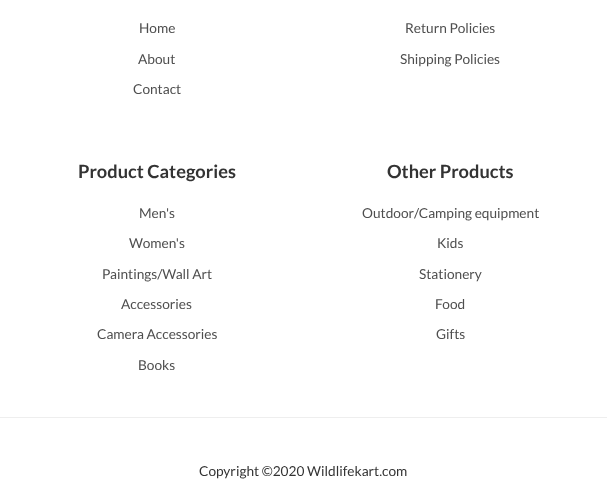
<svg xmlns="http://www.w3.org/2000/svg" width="607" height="495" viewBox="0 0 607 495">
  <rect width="100%" height="100%" fill="#ffffff"/>
  <text x="139" y="33" font-family="Lato" font-size="13.7" fill="#4e4e4e">Home</text>
  <text x="138" y="64" font-family="Lato" font-size="13.7" fill="#4e4e4e">About</text>
  <text x="133" y="94" font-family="Lato" font-size="13.7" fill="#4e4e4e">Contact</text>
  <text x="405" y="33" font-family="Lato" font-size="13.7" fill="#4e4e4e">Return Policies</text>
  <text x="400" y="64" font-family="Lato" font-size="13.7" fill="#4e4e4e">Shipping Policies</text>
  <text x="78" y="178" font-family="Lato" font-size="18.25" font-weight="bold" fill="#333333">Product Categories</text>
  <text x="139" y="218" font-family="Lato" font-size="13.7" fill="#4e4e4e">Men's</text>
  <text x="129" y="248" font-family="Lato" font-size="13.7" fill="#4e4e4e">Women's</text>
  <text x="102" y="279" font-family="Lato" font-size="13.7" fill="#4e4e4e">Paintings/Wall Art</text>
  <text x="121" y="309" font-family="Lato" font-size="13.7" fill="#4e4e4e">Accessories</text>
  <text x="97" y="339" font-family="Lato" font-size="13.7" fill="#4e4e4e">Camera Accessories</text>
  <text x="138" y="370" font-family="Lato" font-size="13.7" fill="#4e4e4e">Books</text>
  <text x="387" y="178" font-family="Lato" font-size="18.25" font-weight="bold" fill="#333333">Other Products</text>
  <text x="362" y="218" font-family="Lato" font-size="13.7" fill="#4e4e4e">Outdoor/Camping equipment</text>
  <text x="437" y="248" font-family="Lato" font-size="13.7" fill="#4e4e4e">Kids</text>
  <text x="419" y="279" font-family="Lato" font-size="13.7" fill="#4e4e4e">Stationery</text>
  <text x="435" y="309" font-family="Lato" font-size="13.7" fill="#4e4e4e">Food</text>
  <text x="436" y="339" font-family="Lato" font-size="13.7" fill="#4e4e4e">Gifts</text>
  <rect x="0" y="417" width="607" height="1" fill="#eeeeee"/>
  <text x="199" y="476" font-family="Lato" font-size="13.7" fill="#333333">Copyright ©2020 Wildlifekart.com</text>
</svg>
